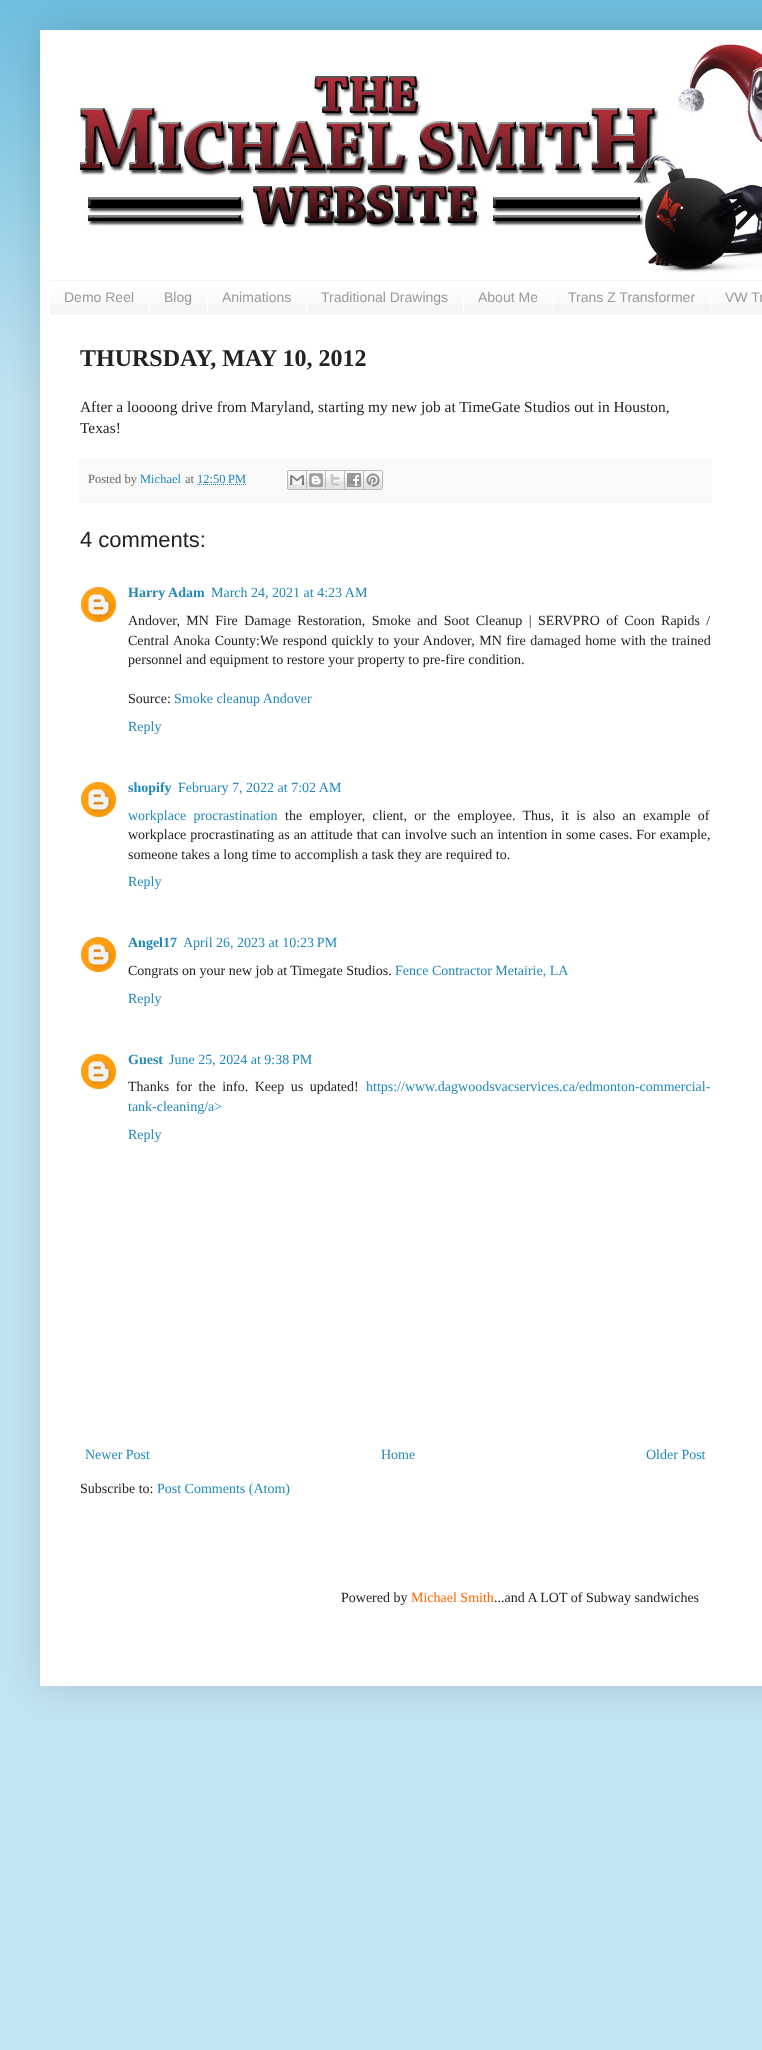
<svg xmlns="http://www.w3.org/2000/svg" width="762" height="2050" viewBox="0 0 762 2050">
  <defs>
    <filter id="blur1" x="-50%" y="-200%" width="200%" height="500%"><feGaussianBlur stdDeviation="20"/></filter>
  </defs>
  <rect width="100%" height="100%" fill="#c2e5f2"/>
  <rect x="0" y="0" width="762" height="400" fill="#66bbdd"/>
  <image x="0" y="0" width="762" height="400" href="img1.png"/>
  <rect x="40" y="30" width="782" height="1656" fill="#000000" fill-opacity="0.15" filter="url(#blur1)"/>
  <rect x="40" y="30" width="722" height="1656" fill="#ffffff"/>
  <image x="74" y="40" width="688" height="233" href="img2.png"/>
  <rect x="50" y="280" width="712" height="35" fill="#f5f5f5"/>
  <image x="50" y="281" width="712" height="24" href="img3.png"/>
  <text x="64" y="302" font-family="Liberation Sans" font-size="14" fill="#999999">Demo Reel</text>
  <rect x="149" y="292" width="1" height="22" fill="#ffffff"/>
  <text x="164" y="302" font-family="Liberation Sans" font-size="14" fill="#999999">Blog</text>
  <rect x="207" y="292" width="1" height="22" fill="#ffffff"/>
  <text x="222" y="302" font-family="Liberation Sans" font-size="14" fill="#999999">Animations</text>
  <rect x="306" y="292" width="1" height="22" fill="#ffffff"/>
  <text x="321" y="302" font-family="Liberation Sans" font-size="14" fill="#999999">Traditional Drawings</text>
  <rect x="463" y="292" width="1" height="22" fill="#ffffff"/>
  <text x="478" y="302" font-family="Liberation Sans" font-size="14" fill="#999999">About Me</text>
  <rect x="553" y="292" width="1" height="22" fill="#ffffff"/>
  <text x="568" y="302" font-family="Liberation Sans" font-size="14" fill="#999999">Trans Z Transformer</text>
  <rect x="710" y="292" width="1" height="22" fill="#ffffff"/>
  <text x="725" y="302" font-family="Liberation Sans" font-size="14" fill="#999999">VW Tr</text>
  <text x="80" y="366" font-family="Liberation Serif" font-size="24" font-weight="bold" fill="#222222">THURSDAY, MAY 10, 2012</text>
  <text x="80" y="412" font-family="Liberation Serif" font-size="15.4" fill="#222222">After a loooong drive from Maryland, starting my new job at TimeGate Studios out in Houston,</text>
  <text x="80" y="433" font-family="Liberation Serif" font-size="15.4" fill="#222222">Texas!</text>
  <rect x="78" y="459" width="634" height="42" fill="#f9f9f9"/>
  <rect x="78" y="501" width="634" height="1" fill="#eeeeee"/>
  <text x="88" y="483" font-family="Liberation Serif" font-size="12.5" fill="#666666">Posted by</text>
  <text x="140" y="483" font-family="Liberation Serif" font-size="12.5" fill="#2288bb">Michael</text>
  <text x="185" y="483" font-family="Liberation Serif" font-size="12.5" fill="#666666">at</text>
  <text x="197" y="483" font-family="Liberation Serif" font-size="12.5" fill="#2288bb">12:50 PM</text>
  <path d="M197 484.5H246.5" fill="none" stroke="#2288bb" stroke-dasharray="1 1"/>
  <image x="287" y="470" width="20" height="20" href="img4.png"/>
  <image x="307" y="470" width="19" height="20" href="img5.png"/>
  <image x="326" y="470" width="19" height="20" href="img6.png"/>
  <image x="345" y="470" width="19" height="20" href="img7.png"/>
  <image x="364" y="470" width="19" height="20" href="img8.png"/>
  <text x="80" y="547" font-family="Liberation Sans" font-size="22" fill="#222222">4 comments:</text>
  <image x="81" y="587" width="35" height="35" href="img9.png"/>
  <text x="128" y="597" font-family="Liberation Serif" font-size="14" font-weight="bold" fill="#2288bb">Harry Adam</text>
  <text x="211" y="597" font-family="Liberation Serif" font-size="14" fill="#2288bb">March 24, 2021 at 4:23 AM</text>
  <text x="128" y="625" word-spacing="2.9" font-family="Liberation Serif" font-size="14" fill="#222222">Andover, MN Fire Damage Restoration, Smoke and Soot Cleanup | SERVPRO of Coon Rapids /</text>
  <text x="128" y="645" word-spacing="1" font-family="Liberation Serif" font-size="14" fill="#222222">Central Anoka County:We respond quickly to your Andover, MN fire damaged home with the trained</text>
  <text x="128" y="664" font-family="Liberation Serif" font-size="14" fill="#222222">personnel and equipment to restore your property to pre-fire condition.</text>
  <text x="128" y="703" font-family="Liberation Serif" font-size="14" fill="#222222">Source:</text>
  <text x="174" y="703" font-family="Liberation Serif" font-size="14" fill="#2288bb">Smoke cleanup Andover</text>
  <text x="128" y="731" font-family="Liberation Serif" font-size="14" fill="#2288bb">Reply</text>
  <image x="81" y="782" width="35" height="35" href="img9.png"/>
  <text x="128" y="792" font-family="Liberation Serif" font-size="14" font-weight="bold" fill="#2288bb">shopify</text>
  <text x="178" y="792" font-family="Liberation Serif" font-size="14" fill="#2288bb">February 7, 2022 at 7:02 AM</text>
  <text x="128" y="820" word-spacing="3.75" font-family="Liberation Serif" font-size="14" fill="#2288bb">workplace procrastination</text>
  <text x="285" y="820" word-spacing="3.75" font-family="Liberation Serif" font-size="14" fill="#222222">the employer, client, or the employee. Thus, it is also an example of</text>
  <text x="128" y="839" word-spacing="0.4" font-family="Liberation Serif" font-size="14" fill="#222222">workplace procrastinating as an attitude that can involve such an intention in some cases. For example,</text>
  <text x="128" y="859" font-family="Liberation Serif" font-size="14" fill="#222222">someone takes a long time to accomplish a task they are required to.</text>
  <text x="128" y="886" font-family="Liberation Serif" font-size="14" fill="#2288bb">Reply</text>
  <image x="81" y="937" width="35" height="35" href="img9.png"/>
  <text x="128" y="947" font-family="Liberation Serif" font-size="14" font-weight="bold" fill="#2288bb">Angel17</text>
  <text x="183" y="947" font-family="Liberation Serif" font-size="14" fill="#2288bb">April 26, 2023 at 10:23 PM</text>
  <text x="128" y="975" font-family="Liberation Serif" font-size="14" fill="#222222">Congrats on your new job at Timegate Studios.</text>
  <text x="395" y="975" font-family="Liberation Serif" font-size="14" fill="#2288bb">Fence Contractor Metairie, LA</text>
  <text x="128" y="1003" font-family="Liberation Serif" font-size="14" fill="#2288bb">Reply</text>
  <image x="81" y="1054" width="35" height="35" href="img9.png"/>
  <text x="128" y="1064" font-family="Liberation Serif" font-size="14" font-weight="bold" fill="#2288bb">Guest</text>
  <text x="169" y="1064" font-family="Liberation Serif" font-size="14" fill="#2288bb">June 25, 2024 at 9:38 PM</text>
  <text x="128" y="1091" word-spacing="3" font-family="Liberation Serif" font-size="14" fill="#222222">Thanks for the info. Keep us updated!</text>
  <text x="366" y="1091" font-family="Liberation Serif" font-size="14" fill="#2288bb">https://www.dagwoodsvacservices.ca/edmonton-commercial-</text>
  <text x="128" y="1111" font-family="Liberation Serif" font-size="14" fill="#2288bb">tank-cleaning/a&gt;</text>
  <text x="128" y="1139" font-family="Liberation Serif" font-size="14" fill="#2288bb">Reply</text>
  <text x="85" y="1459" font-family="Liberation Serif" font-size="14" fill="#2288bb">Newer Post</text>
  <text x="381" y="1459" font-family="Liberation Serif" font-size="14" fill="#2288bb">Home</text>
  <text x="646" y="1459" font-family="Liberation Serif" font-size="14" fill="#2288bb">Older Post</text>
  <text x="80" y="1493" font-family="Liberation Serif" font-size="14" fill="#222222">Subscribe to:</text>
  <text x="157" y="1493" font-family="Liberation Serif" font-size="14" fill="#2288bb">Post Comments (Atom)</text>
  <text x="341" y="1602" font-family="Liberation Serif" font-size="14" fill="#222222">Powered by</text>
  <text x="411" y="1602" font-family="Liberation Serif" font-size="14" fill="#ff6600">Michael Smith</text>
  <text x="494" y="1602" font-family="Liberation Serif" font-size="14" fill="#222222">...and A LOT of Subway sandwiches</text>
</svg>
